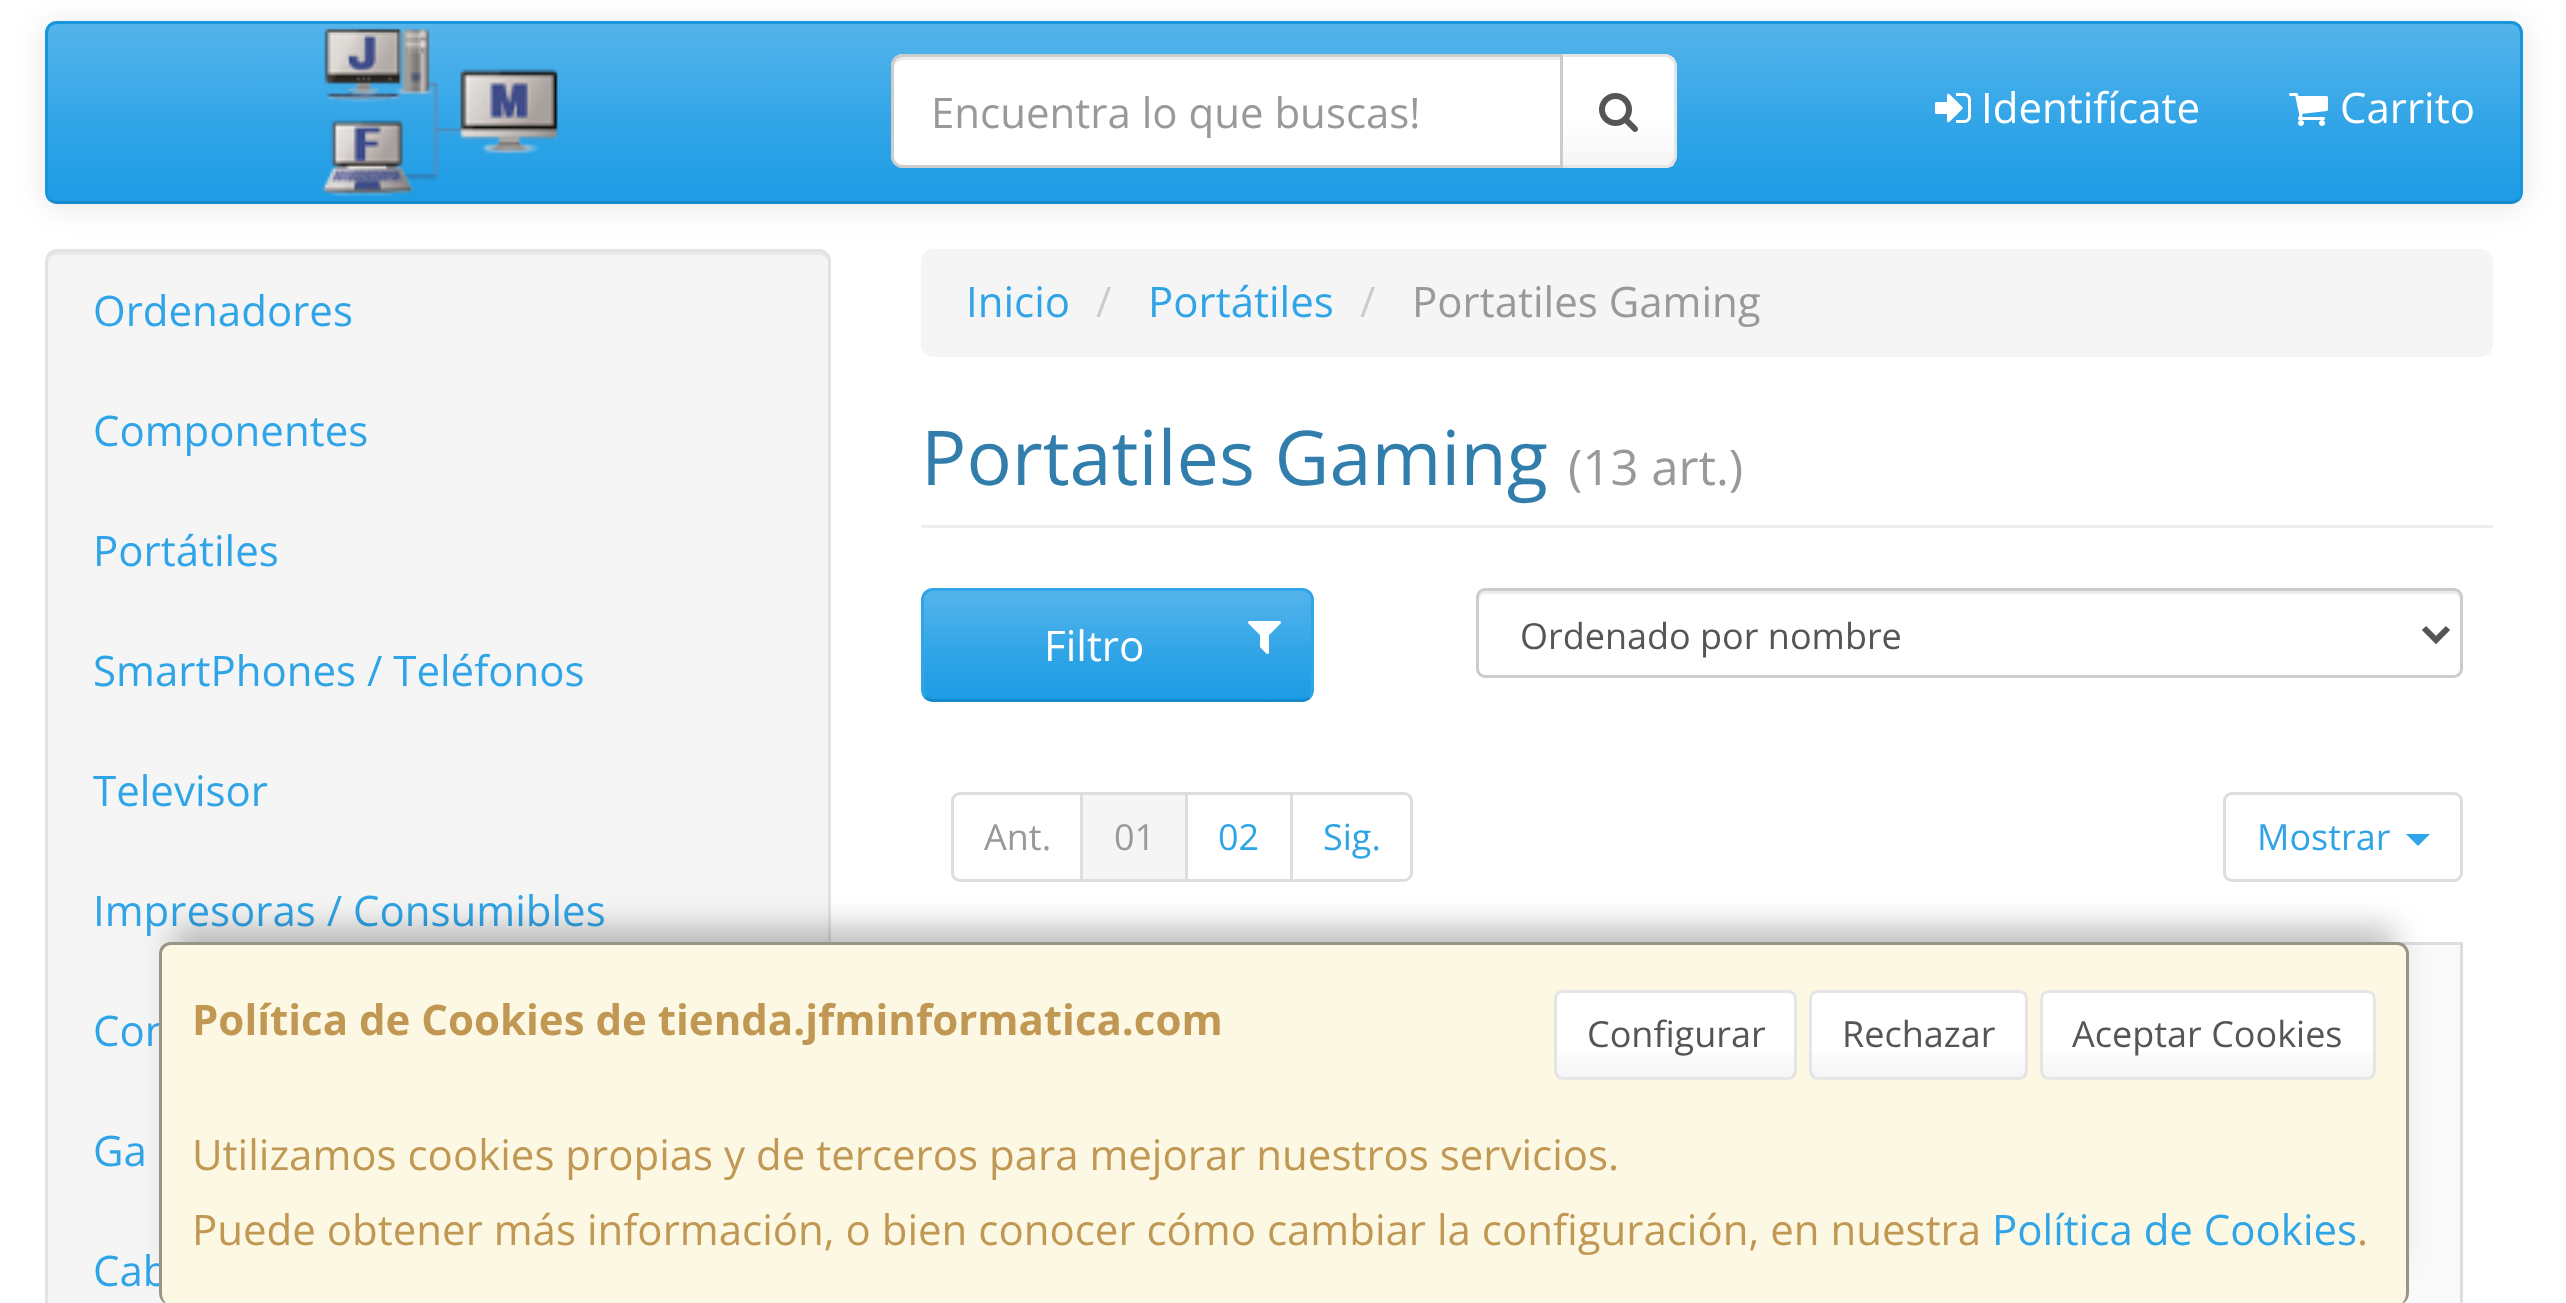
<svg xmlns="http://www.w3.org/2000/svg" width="2566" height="1303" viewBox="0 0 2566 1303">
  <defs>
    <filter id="blur1" x="-50%" y="-200%" width="200%" height="500%"><feGaussianBlur stdDeviation="15"/></filter>
    <clipPath id="clip1"><rect x="45" y="21" width="2478" height="183" rx="12"/></clipPath>
    <linearGradient id="g1" gradientUnits="userSpaceOnUse" x1="1284" y1="24" x2="1284" y2="201"><stop offset="0" stop-color="#54b4eb"/><stop offset="0.6" stop-color="#2fa4e7"/><stop offset="1" stop-color="#1d9ce5"/></linearGradient>
    <linearGradient id="g2" gradientUnits="userSpaceOnUse" x1="1619" y1="57" x2="1619" y2="165"><stop offset="0" stop-color="#ffffff"/><stop offset="0.6" stop-color="#ffffff"/><stop offset="1" stop-color="#f5f5f5"/></linearGradient>
    <clipPath id="clip2"><rect x="921" y="588" width="393" height="114" rx="12"/></clipPath>
    <linearGradient id="g3" gradientUnits="userSpaceOnUse" x1="1118" y1="591" x2="1118" y2="699"><stop offset="0" stop-color="#54b4eb"/><stop offset="0.6" stop-color="#2fa4e7"/><stop offset="1" stop-color="#1d9ce5"/></linearGradient>
    <linearGradient id="g4" gradientUnits="userSpaceOnUse" x1="1676" y1="993" x2="1676" y2="1077"><stop offset="0" stop-color="#ffffff"/><stop offset="0.6" stop-color="#ffffff"/><stop offset="1" stop-color="#f5f5f5"/></linearGradient>
    <linearGradient id="g5" gradientUnits="userSpaceOnUse" x1="1919" y1="993" x2="1919" y2="1077"><stop offset="0" stop-color="#ffffff"/><stop offset="0.6" stop-color="#ffffff"/><stop offset="1" stop-color="#f5f5f5"/></linearGradient>
    <linearGradient id="g6" gradientUnits="userSpaceOnUse" x1="2208" y1="993" x2="2208" y2="1077"><stop offset="0" stop-color="#ffffff"/><stop offset="0.6" stop-color="#ffffff"/><stop offset="1" stop-color="#f5f5f5"/></linearGradient>
  </defs>
  <rect width="100%" height="100%" fill="#ffffff"/>
  <rect x="45" y="24" width="2478" height="183" rx="12" fill="#000000" fill-opacity="0.1" filter="url(#blur1)"/>
  <g clip-path="url(#clip1)">
    <rect x="48" y="24" width="2472" height="177" fill="url(#g1)"/>
  </g>
  <path d="M2518.5 199.5C2516.5 201.5 2514 202.5 2511 202.5H57C54 202.5 51.5 201.5 49.5 199.5" fill="none" stroke="#178acc" stroke-width="3"/>
  <path d="M49.5 199.5C47.5 197.5 46.5 195 46.5 192V33C46.5 30 47.5 27.5 49.5 25.5C51.5 23.5 54 22.5 57 22.5H2511C2514 22.5 2516.5 23.5 2518.5 25.5C2520.5 27.5 2521.5 30 2521.5 33V192C2521.5 195 2520.5 197.5 2518.5 199.5" fill="none" stroke="#1995dc" stroke-width="3"/>
  <image x="321" y="28" width="237" height="169" href="img1.png"/>
  <path d="M1560 54H1665C1671.5 54 1677 59.5 1677 66V156C1677 162.5 1671.5 168 1665 168H1560Z" fill="#ffffff"/>
  <rect x="1563" y="57" width="111" height="108" fill="url(#g2)"/>
  <path d="M1560 54L1563 57H1665C1668 57 1670 58 1671 60L1674 57C1672 55 1668 54 1665 54Z" fill="#000000" fill-opacity="0.1"/>
  <path d="M1677 156V66C1677 62 1676 60 1674 57L1671 60C1673 61 1674 64 1674 66V156C1674 158 1673 161 1671 162L1674 165C1676 162 1677 160 1677 156Z" fill="#000000" fill-opacity="0.1"/>
  <path d="M1665 168C1668 168 1672 167 1674 165L1671 162C1670 164 1668 165 1665 165H1563L1560 168Z" fill="#e6e6e6"/>
  <path d="M903 54H1563V168H903C896.5 168 891 162.5 891 156V66C891 59.5 896.5 54 903 54Z" fill="#ffffff"/>
  <path d="M903 60H1560V57H903C896 57 894 63 894 69C894 64 898 60 903 60Z" fill="#ececec"/>
  <path d="M903 55.5H1561.5V166.5H903C897 166.5 892.5 162 892.5 156V66C892.5 60 897 55.5 903 55.5Z" fill="none" stroke="#cccccc" stroke-width="3"/>
  <text x="931" y="128" font-family="Open Sans" font-size="42" fill="#999999">Encuentra lo que buscas!</text>
  <image x="1599" y="93" width="39" height="39" href="img2.png"/>
  <image x="1935" y="93" width="36" height="30" href="img3.png"/>
  <text x="1981" y="123" font-family="Open Sans" font-size="42" fill="#ffffff">Identifícate</text>
  <image x="2289" y="93" width="39" height="33" href="img4.png"/>
  <text x="2340" y="123" font-family="Open Sans" font-size="42" fill="#ffffff">Carrito</text>
  <rect x="45" y="249" width="786" height="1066" rx="12" fill="#f5f5f5"/>
  <path d="M57 255H819C824 255 828 259 828 264V261C828 256 824 252 819 252H57C52 252 48 256 48 261V264C48 259 52 255 57 255Z" fill="#e9e9e9"/>
  <rect x="46.5" y="250.5" width="783" height="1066" rx="10.5" fill="none" stroke="#e3e3e3" stroke-width="3"/>
  <text x="93" y="326" font-family="Open Sans" font-size="42" fill="#2fa4e7">Ordenadores</text>
  <text x="93" y="446" font-family="Open Sans" font-size="42" fill="#2fa4e7">Componentes</text>
  <text x="93" y="566" font-family="Open Sans" font-size="42" fill="#2fa4e7">Portátiles</text>
  <text x="93" y="686" font-family="Open Sans" font-size="42" fill="#2fa4e7">SmartPhones / Teléfonos</text>
  <text x="93" y="806" font-family="Open Sans" font-size="42" fill="#2fa4e7">Televisor</text>
  <text x="93" y="926" font-family="Open Sans" font-size="42" fill="#2fa4e7">Impresoras / Consumibles</text>
  <text x="93" y="1046" font-family="Open Sans" font-size="42" fill="#2fa4e7">Con</text>
  <text x="93" y="1166" font-family="Open Sans" font-size="42" fill="#2fa4e7">Ga</text>
  <text x="93" y="1286" font-family="Open Sans" font-size="42" fill="#2fa4e7">Cab</text>
  <rect x="921" y="249" width="1572" height="108" rx="12" fill="#f5f5f5"/>
  <text x="966" y="317" font-family="Open Sans" font-size="42" fill="#2fa4e7">Inicio</text>
  <text x="1096" y="317" font-family="Open Sans" font-size="42" fill="#cccccc">/</text>
  <text x="1148" y="317" font-family="Open Sans" font-size="42" fill="#2fa4e7">Portátiles</text>
  <text x="1360" y="317" font-family="Open Sans" font-size="42" fill="#cccccc">/</text>
  <text x="1412" y="317" font-family="Open Sans" font-size="42" fill="#999999">Portatiles Gaming</text>
  <rect x="921" y="525" width="1572" height="3" fill="#eeeeee"/>
  <text x="921" y="485" font-family="Open Sans" font-size="75.5" fill="#317eac">Portatiles Gaming</text>
  <text x="1568" y="485" font-family="Open Sans" font-size="49" fill="#999999">(13 art.)</text>
  <g clip-path="url(#clip2)">
    <rect x="924" y="591" width="387" height="108" fill="url(#g3)"/>
  </g>
  <path d="M1309.5 697.5C1307.5 699.5 1305 700.5 1302 700.5H933C930 700.5 927.5 699.5 925.5 697.5" fill="none" stroke="#178acc" stroke-width="3"/>
  <path d="M925.5 697.5C923.5 695.5 922.5 693 922.5 690V600C922.5 597 923.5 594.5 925.5 592.5C927.5 590.5 930 589.5 933 589.5H1302C1305 589.5 1307.5 590.5 1309.5 592.5C1311.5 594.5 1312.5 597 1312.5 600V690C1312.5 693 1311.5 695.5 1309.5 697.5" fill="none" stroke="#2fa4e7" stroke-width="3"/>
  <text x="1044" y="661" font-family="Open Sans" font-size="42" fill="#ffffff">Filtro</text>
  <image x="1248" y="621" width="33" height="33" href="img5.png"/>
  <path d="M1485 594H2454C2457 594 2460 597 2460 600V597C2460 594 2457 591 2454 591H1485C1482 591 1479 594 1479 597V600C1479 597 1482 594 1485 594Z" fill="#ececec"/>
  <rect x="1477.5" y="589.5" width="984" height="87" rx="7.5" fill="none" stroke="#cccccc" stroke-width="3"/>
  <path d="M2424 628L2436 640L2448 628" fill="none" stroke="#555555" stroke-width="6"/>
  <text x="1520" y="649" font-family="Open Sans" font-size="36" fill="#555555">Ordenado por nombre</text>
  <path d="M960 793.5H1081.5V880.5H960C956 880.5 952.5 877 952.5 873V801C952.5 797 956 793.5 960 793.5Z" fill="none" stroke="#dddddd" stroke-width="3"/>
  <text x="984" y="850" font-family="Open Sans" font-size="36" fill="#999999">Ant.</text>
  <rect x="1186.5" y="793.5" width="105" height="87" fill="none" stroke="#dddddd" stroke-width="3"/>
  <rect x="1081.5" y="793.5" width="105" height="87" fill="#f5f5f5" stroke="#dddddd" stroke-width="3"/>
  <text x="1114" y="850" font-family="Open Sans" font-size="36" fill="#999999">01</text>
  <text x="1218" y="850" font-family="Open Sans" font-size="36" fill="#2fa4e7">02</text>
  <path d="M1291.5 793.5H1404C1408 793.5 1411.5 797 1411.5 801V873C1411.5 877 1408 880.5 1404 880.5H1291.5Z" fill="#ffffff" stroke="#dddddd" stroke-width="3"/>
  <text x="1323" y="850" font-family="Open Sans" font-size="36" fill="#2fa4e7">Sig.</text>
  <rect x="2224.5" y="793.5" width="237" height="87" rx="7.5" fill="none" stroke="#dddddd" stroke-width="3"/>
  <text x="2257" y="850" font-family="Open Sans" font-size="36" fill="#2fa4e7">Mostrar</text>
  <path d="M2406 834H2430L2418 846Z" fill="#2fa4e7"/>
  <path d="M963 942H2451C2457.5 942 2463 947.5 2463 954V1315H951V954C951 947.5 956.5 942 963 942Z" fill="#f9f9f9"/>
  <rect x="952.5" y="943.5" width="1509" height="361" fill="none" stroke="#dddddd" stroke-width="3"/>
  <rect x="174" y="927" width="2220" height="333" fill="#000000" fill-opacity="0.25" filter="url(#blur1)"/>
  <rect x="159" y="942" width="2250" height="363" rx="12" fill="#fcf8e3"/>
  <path d="M171 942H2397C2404 942 2409 947 2409 954V1293C2409 1300 2404 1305 2397 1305H171C164 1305 159 1300 159 1293V954C159 947 164 942 171 942ZM171 945H2397C2402 945 2406 949 2406 954V1293C2406 1300 2402 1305 2397 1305H171C166 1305 162 1300 162 1293V954C162 949 166 945 171 945Z" fill="#000000" fill-opacity="0.4" fill-rule="evenodd"/>
  <text x="192" y="1035" font-family="Open Sans" font-size="42" font-weight="bold" fill="#c09853">Política de Cookies de tienda.jfminformatica.com</text>
  <rect x="1554" y="990" width="243" height="90" rx="9" fill="#ffffff"/>
  <rect x="1557" y="1052" width="237" height="25" fill="url(#g4)"/>
  <path d="M1793.5 1076.5C1792 1077.5 1790 1078.5 1788 1078.5H1563C1561 1078.5 1559 1077.5 1557.5 1076.5" fill="none" stroke="#e6e6e6" stroke-width="3"/>
  <path d="M1557.5 1076.5C1556.5 1075 1555.5 1073 1555.5 1071V999C1555.5 997 1556.5 995 1557.5 993.5C1559 992.5 1561 991.5 1563 991.5H1788C1790 991.5 1792 992.5 1793.5 993.5C1794.5 995 1795.5 997 1795.5 999V1071C1795.5 1073 1794.5 1075 1793.5 1076.5" fill="none" stroke="#000000" stroke-opacity="0.1" stroke-width="3"/>
  <text x="1587" y="1047" font-family="Open Sans" font-size="36" fill="#555555">Configurar</text>
  <rect x="1809" y="990" width="219" height="90" rx="9" fill="#ffffff"/>
  <rect x="1812" y="1052" width="213" height="25" fill="url(#g5)"/>
  <path d="M2024.5 1076.5C2023 1077.5 2021 1078.5 2019 1078.5H1818C1816 1078.5 1814 1077.5 1812.5 1076.5" fill="none" stroke="#e6e6e6" stroke-width="3"/>
  <path d="M1812.5 1076.5C1811.5 1075 1810.5 1073 1810.5 1071V999C1810.5 997 1811.5 995 1812.5 993.5C1814 992.5 1816 991.5 1818 991.5H2019C2021 991.5 2023 992.5 2024.5 993.5C2025.5 995 2026.5 997 2026.5 999V1071C2026.5 1073 2025.5 1075 2024.5 1076.5" fill="none" stroke="#000000" stroke-opacity="0.1" stroke-width="3"/>
  <text x="1842" y="1047" font-family="Open Sans" font-size="36" fill="#555555">Rechazar</text>
  <rect x="2040" y="990" width="336" height="90" rx="9" fill="#ffffff"/>
  <rect x="2043" y="1052" width="330" height="25" fill="url(#g6)"/>
  <path d="M2372.5 1076.5C2371 1077.5 2369 1078.5 2367 1078.5H2049C2047 1078.5 2045 1077.5 2043.5 1076.5" fill="none" stroke="#e6e6e6" stroke-width="3"/>
  <path d="M2043.5 1076.5C2042.5 1075 2041.5 1073 2041.5 1071V999C2041.5 997 2042.5 995 2043.5 993.5C2045 992.5 2047 991.5 2049 991.5H2367C2369 991.5 2371 992.5 2372.5 993.5C2373.5 995 2374.5 997 2374.5 999V1071C2374.5 1073 2373.5 1075 2372.5 1076.5" fill="none" stroke="#000000" stroke-opacity="0.1" stroke-width="3"/>
  <text x="2072" y="1047" font-family="Open Sans" font-size="36" fill="#555555">Aceptar Cookies</text>
  <text x="192" y="1170" font-family="Open Sans" font-size="42" fill="#c09853">Utilizamos cookies propias y de terceros para mejorar nuestros servicios.</text>
  <text x="192" y="1245" font-family="Open Sans" font-size="42" fill="#c09853">Puede obtener más información, o bien conocer cómo cambiar la configuración, en nuestra</text>
  <text x="1992" y="1245" font-family="Open Sans" font-size="42" fill="#2fa4e7">Política de Cookies</text>
  <text x="2357" y="1245" font-family="Open Sans" font-size="42" fill="#c09853">.</text>
</svg>
